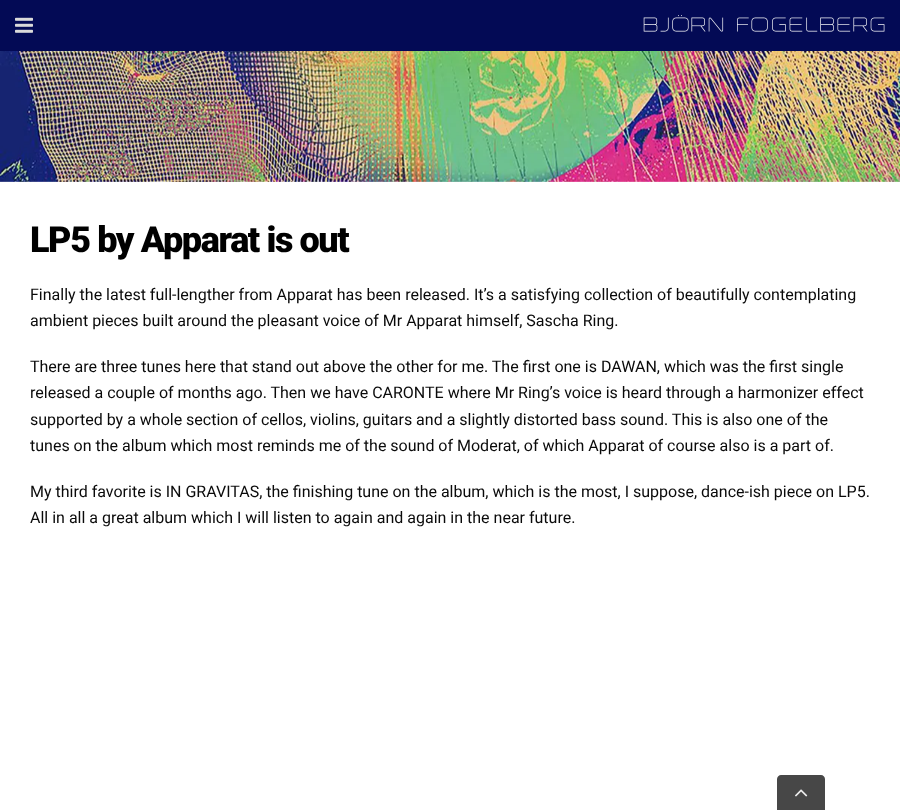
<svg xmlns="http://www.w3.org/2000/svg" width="900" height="810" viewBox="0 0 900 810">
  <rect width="100%" height="100%" fill="#ffffff"/>
  <rect x="0" y="0" width="900" height="51" fill="#030a55"/>
  <image x="15" y="17" width="18" height="16" href="img1.png"/>
  <image x="643" y="15" width="242" height="17" href="img2.png"/>
  <image x="0" y="51" width="900" height="131" href="img3.png"/>
  <text x="30" y="252" font-family="Roboto" font-size="36" font-weight="900" letter-spacing="-1.4" fill="#000000">LP5 by Apparat is out</text>
  <text x="30" y="300" font-family="Roboto" font-size="16" fill="#0a0a0a">Finally the latest full-lengther from Apparat has been released. It’s a satisfying collection of beautifully contemplating</text>
  <text x="30" y="326" font-family="Roboto" font-size="16" fill="#0a0a0a">ambient pieces built around the pleasant voice of Mr Apparat himself, Sascha Ring.</text>
  <text x="30" y="372" font-family="Roboto" font-size="16" fill="#0a0a0a">There are three tunes here that stand out above the other for me. The first one is DAWAN, which was the first single</text>
  <text x="30" y="398" font-family="Roboto" font-size="16" fill="#0a0a0a">released a couple of months ago. Then we have CARONTE where Mr Ring’s voice is heard through a harmonizer effect</text>
  <text x="30" y="425" font-family="Roboto" font-size="16" fill="#0a0a0a">supported by a whole section of cellos, violins, guitars and a slightly distorted bass sound. This is also one of the</text>
  <text x="30" y="451" font-family="Roboto" font-size="16" fill="#0a0a0a">tunes on the album which most reminds me of the sound of Moderat, of which Apparat of course also is a part of.</text>
  <text x="30" y="497" font-family="Roboto" font-size="16" fill="#0a0a0a">My third favorite is IN GRAVITAS, the finishing tune on the album, which is the most, I suppose, dance-ish piece on LP5.</text>
  <text x="30" y="523" font-family="Roboto" font-size="16" fill="#0a0a0a">All in all a great album which I will listen to again and again in the near future.</text>
  <path d="M781 775H821C823 775 825 777 825 779V810H777V779C777 777 779 775 781 775Z" fill="#474747"/>
  <image x="795" y="789" width="13" height="8" href="img4.png"/>
</svg>
